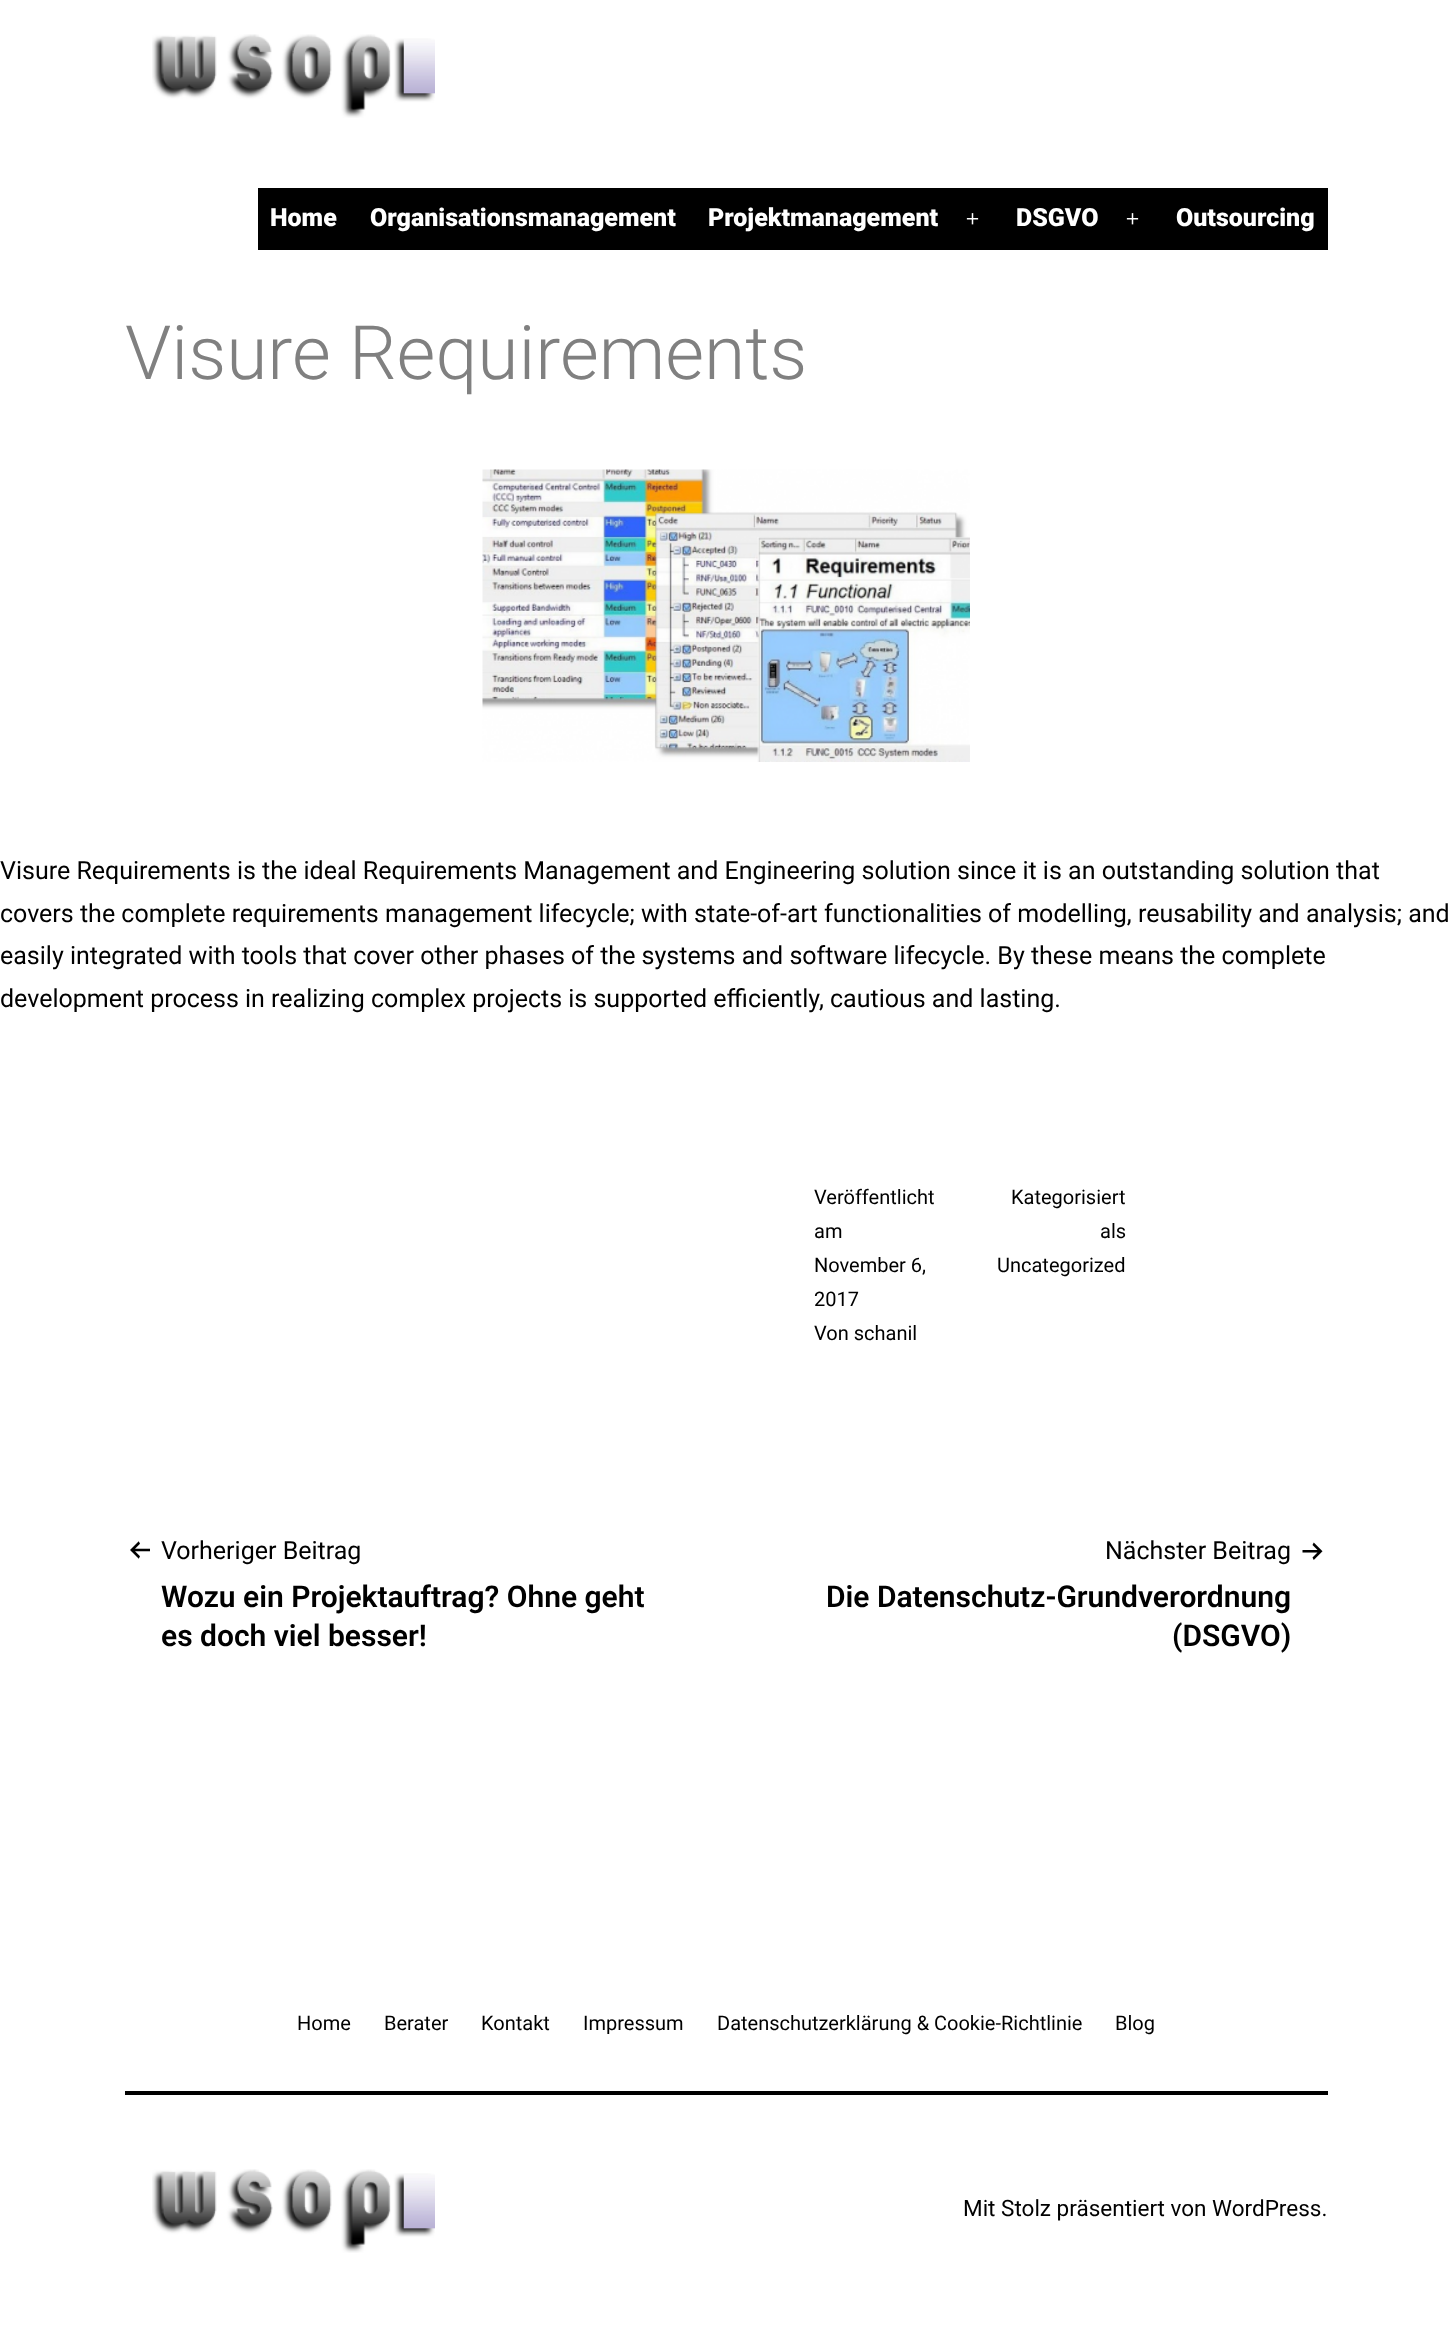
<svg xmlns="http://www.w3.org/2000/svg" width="1452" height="2336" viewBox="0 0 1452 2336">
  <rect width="100%" height="100%" fill="#ffffff"/>
  <image x="152" y="34" width="283" height="84" href="img1.png"/>
  <rect x="258" y="188" width="1070" height="62" fill="#000000"/>
  <text x="270" y="226" font-family="Roboto" font-size="25" font-weight="900" fill="#ffffff">Home</text>
  <text x="370" y="226" font-family="Roboto" font-size="25" font-weight="900" fill="#ffffff">Organisationsmanagement</text>
  <text x="708" y="226" font-family="Roboto" font-size="25" font-weight="900" fill="#ffffff">Projektmanagement</text>
  <image x="966" y="213" width="13" height="12" href="img2.png"/>
  <text x="1016" y="226" font-family="Roboto" font-size="25" font-weight="900" fill="#ffffff">DSGVO</text>
  <image x="1126" y="213" width="13" height="12" href="img2.png"/>
  <text x="1176" y="226" font-family="Roboto" font-size="25" font-weight="900" fill="#ffffff">Outsourcing</text>
  <text x="125" y="379" font-family="Roboto" font-size="75" font-weight="300" fill="#808080">Visure Requirements</text>
  <image x="482" y="469" width="488" height="293" href="img3.png"/>
  <text x="0" y="879" font-family="Roboto" font-size="25" fill="#000000">Visure Requirements is the ideal Requirements Management and Engineering solution since it is an outstanding solution that</text>
  <text x="0" y="922" font-family="Roboto" font-size="25" fill="#000000">covers the complete requirements management lifecycle; with state-of-art functionalities of modelling, reusability and analysis; and</text>
  <text x="0" y="964" font-family="Roboto" font-size="25" fill="#000000">easily integrated with tools that cover other phases of the systems and software lifecycle. By these means the complete</text>
  <text x="0" y="1007" font-family="Roboto" font-size="25" fill="#000000">development process in realizing complex projects is supported efficiently, cautious and lasting.</text>
  <text x="814" y="1204" font-family="Roboto" font-size="20" fill="#000000">Veröffentlicht</text>
  <text x="814" y="1238" font-family="Roboto" font-size="20" fill="#000000">am</text>
  <text x="814" y="1272" font-family="Roboto" font-size="20" fill="#000000">November 6,</text>
  <text x="814" y="1306" font-family="Roboto" font-size="20" fill="#000000">2017</text>
  <text x="814" y="1340" font-family="Roboto" font-size="20" fill="#000000">Von schanil</text>
  <text x="1011" y="1204" font-family="Roboto" font-size="20" fill="#000000">Kategorisiert</text>
  <text x="1100" y="1238" font-family="Roboto" font-size="20" fill="#000000">als</text>
  <text x="997" y="1272" font-family="Roboto" font-size="20" fill="#000000">Uncategorized</text>
  <image x="130" y="1541" width="20" height="18" href="img4.png"/>
  <text x="161" y="1559" font-family="Roboto" font-size="25" fill="#000000">Vorheriger Beitrag</text>
  <text x="161" y="1607" font-family="Roboto" font-size="30" font-weight="600" fill="#000000">Wozu ein Projektauftrag? Ohne geht</text>
  <text x="161" y="1646" font-family="Roboto" font-size="30" font-weight="600" fill="#000000">es doch viel besser!</text>
  <text x="1105" y="1559" font-family="Roboto" font-size="25" fill="#000000">Nächster Beitrag</text>
  <image x="1302" y="1542" width="21" height="18" href="img5.png"/>
  <text x="826" y="1607" font-family="Roboto" font-size="30" font-weight="600" fill="#000000">Die Datenschutz-Grundverordnung</text>
  <text x="1172" y="1646" font-family="Roboto" font-size="30" font-weight="600" fill="#000000">(DSGVO)</text>
  <text x="297" y="2030" font-family="Roboto" font-size="20" fill="#000000">Home</text>
  <text x="384" y="2030" font-family="Roboto" font-size="20" fill="#000000">Berater</text>
  <text x="481" y="2030" font-family="Roboto" font-size="20" fill="#000000">Kontakt</text>
  <text x="583" y="2030" font-family="Roboto" font-size="20" fill="#000000">Impressum</text>
  <text x="717" y="2030" font-family="Roboto" font-size="20" fill="#000000">Datenschutzerklärung &amp; Cookie-Richtlinie</text>
  <text x="1115" y="2030" font-family="Roboto" font-size="20" fill="#000000">Blog</text>
  <rect x="125" y="2091" width="1203" height="4" fill="#000000"/>
  <image x="152" y="2169" width="283" height="84" href="img1.png"/>
  <text x="963" y="2216" font-family="Roboto" font-size="22.5" fill="#000000">Mit Stolz präsentiert von WordPress.</text>
</svg>
